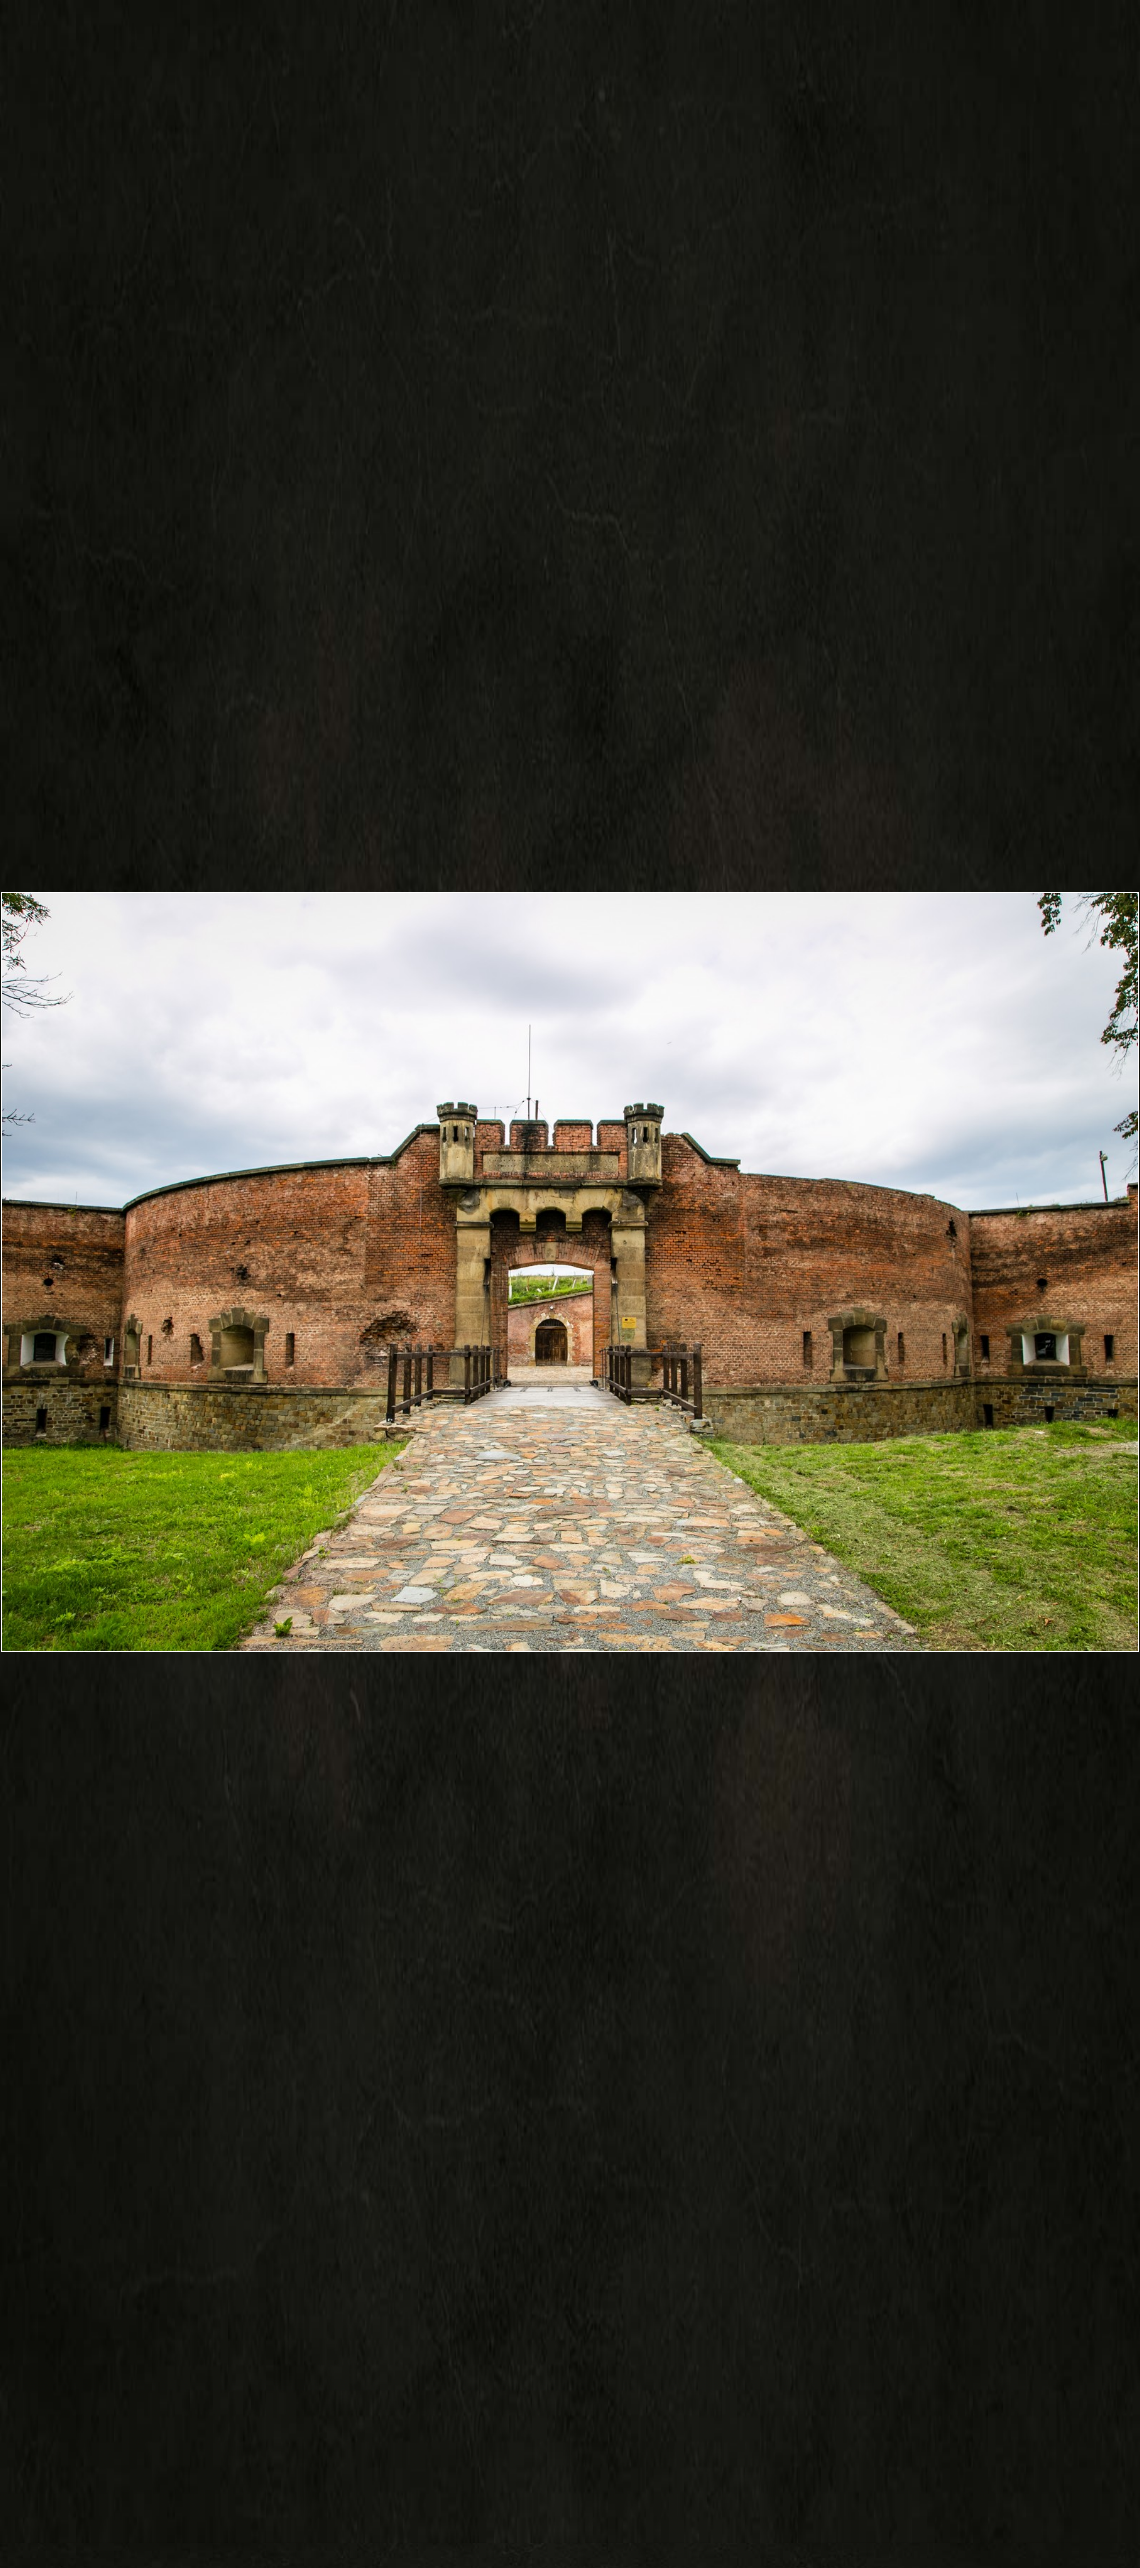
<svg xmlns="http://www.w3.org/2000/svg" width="1140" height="2568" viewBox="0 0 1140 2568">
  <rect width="100%" height="100%" fill="#ffffff"/>
  <image x="0" y="2542" width="1140" height="1" href="img3.png"/>
  <image x="0" y="0" width="1140" height="2543" href="img1.png"/>
  <rect x="1" y="892" width="1138" height="760" fill="#ffffff"/>
  <image x="2" y="893" width="1136" height="758" href="img2.png"/>
  <image x="0" y="2543" width="1140" height="25" href="img4.png"/>
</svg>
